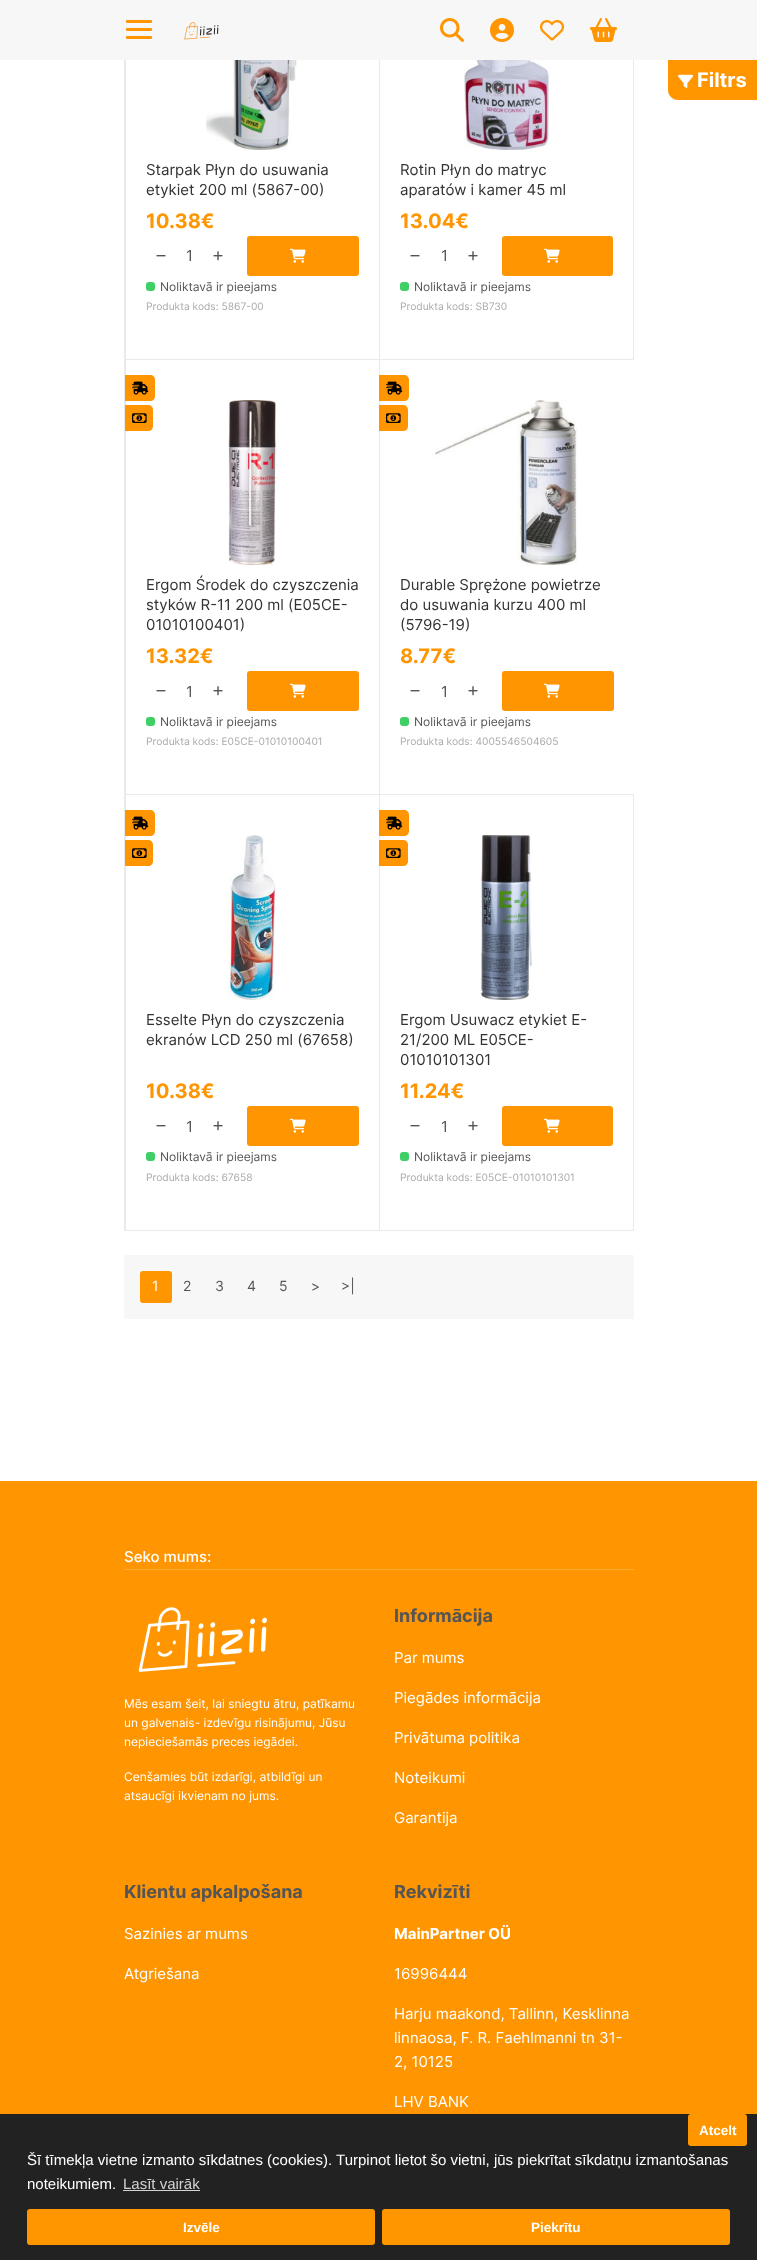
<svg xmlns="http://www.w3.org/2000/svg" width="757" height="2260" viewBox="0 0 757 2260">
  <rect width="100%" height="100%" fill="#ffffff"/>
  <path d="M668 60H757V100H678C672.5 100 668 95.5 668 90Z" fill="#ff9600"/>
  <image x="678" y="74" width="15" height="14" href="img1.png"/>
  <text x="697" y="87" font-family="Inter" font-size="20" font-weight="bold" fill="#ffffff">Filtrs</text>
  <rect x="0" y="0" width="757" height="60" fill="#f7f7f7"/>
  <rect x="126" y="20" width="26" height="3" rx="1" fill="#ff9500"/>
  <rect x="126" y="28" width="26" height="3" rx="1" fill="#ff9500"/>
  <rect x="126" y="36" width="26" height="3" rx="1" fill="#ff9500"/>
  <image x="184" y="22" width="35" height="18" href="img2.png"/>
  <image x="440" y="18" width="24" height="24" href="img3.png"/>
  <image x="490" y="18" width="24" height="24" href="img4.png"/>
  <image x="540" y="20" width="24" height="21" href="img5.png"/>
  <image x="590" y="18" width="27" height="24" href="img6.png"/>
  <rect x="124" y="60" width="1" height="1171" fill="#e9eaec"/>
  <rect x="125" y="359" width="254" height="1" fill="#e9eaec"/>
  <rect x="125" y="60" width="1" height="300" fill="#e9eaec"/>
  <image x="206" y="60" width="92" height="90" href="img7.png"/>
  <text x="146" y="175" font-family="Inter" font-size="15" fill="#333333">Starpak Płyn do usuwania</text>
  <text x="146" y="195" font-family="Inter" font-size="15" fill="#333333">etykiet 200 ml (5867-00)</text>
  <text x="146" y="228" font-family="Inter" font-size="20" font-weight="bold" fill="#ff9500">10.38€</text>
  <image x="156" y="255" width="10" height="2" href="img8.png"/>
  <text x="186" y="261" font-family="Inter" font-size="15" fill="#555555">1</text>
  <image x="213" y="251" width="10" height="10" href="img9.png"/>
  <rect x="247" y="236" width="112" height="40" rx="3" fill="#ff9500"/>
  <image x="290" y="248" width="16" height="15" href="img10.png"/>
  <rect x="146" y="282" width="9" height="9" rx="3" fill="#40ce66"/>
  <text x="160" y="291" font-family="Inter" font-size="12" fill="#555555">Noliktavā ir pieejams</text>
  <text x="146" y="310" font-family="Inter" font-size="10.25" fill="#aaaaaa">Produkta kods: 5867-00</text>
  <rect x="633" y="60" width="1" height="300" fill="#e9eaec"/>
  <rect x="379" y="359" width="255" height="1" fill="#e9eaec"/>
  <rect x="379" y="60" width="1" height="300" fill="#e9eaec"/>
  <image x="464" y="60" width="87" height="90" href="img11.png"/>
  <text x="400" y="175" font-family="Inter" font-size="15" fill="#333333">Rotin Płyn do matryc</text>
  <text x="400" y="195" font-family="Inter" font-size="15" fill="#333333">aparatów i kamer 45 ml</text>
  <text x="400" y="228" font-family="Inter" font-size="20" font-weight="bold" fill="#ff9500">13.04€</text>
  <image x="410" y="255" width="10" height="2" href="img8.png"/>
  <text x="441" y="261" font-family="Inter" font-size="15" fill="#555555">1</text>
  <image x="468" y="251" width="10" height="10" href="img9.png"/>
  <rect x="502" y="236" width="111" height="40" rx="3" fill="#ff9500"/>
  <image x="544" y="248" width="16" height="15" href="img10.png"/>
  <rect x="400" y="282" width="9" height="9" rx="3" fill="#40ce66"/>
  <text x="414" y="291" font-family="Inter" font-size="12" fill="#555555">Noliktavā ir pieejams</text>
  <text x="400" y="310" font-family="Inter" font-size="10.25" fill="#aaaaaa">Produkta kods: SB730</text>
  <rect x="125" y="794" width="509" height="1" fill="#e9eaec"/>
  <rect x="125" y="360" width="1" height="435" fill="#e9eaec"/>
  <path d="M125 375H150C153 375 155 377 155 380V396C155 399 153 401 150 401H125Z" fill="#ff9500"/>
  <image x="132" y="381" width="17" height="14" href="img12.png"/>
  <path d="M125 405H148C151 405 153 407 153 410V426C153 429 151 431 148 431H125Z" fill="#ff9500"/>
  <image x="132" y="413" width="15" height="10" href="img13.png"/>
  <image x="228" y="400" width="52" height="165" href="img14.png"/>
  <text x="146" y="590" font-family="Inter" font-size="15" fill="#333333">Ergom Środek do czyszczenia</text>
  <text x="146" y="610" font-family="Inter" font-size="15" fill="#333333">styków R-11 200 ml (E05CE-</text>
  <text x="146" y="630" font-family="Inter" font-size="15" fill="#333333">01010100401)</text>
  <text x="146" y="663" font-family="Inter" font-size="20" font-weight="bold" fill="#ff9500">13.32€</text>
  <image x="156" y="690" width="10" height="2" href="img8.png"/>
  <text x="186" y="697" font-family="Inter" font-size="15" fill="#555555">1</text>
  <image x="213" y="686" width="10" height="10" href="img9.png"/>
  <rect x="247" y="671" width="112" height="40" rx="3" fill="#ff9500"/>
  <image x="290" y="683" width="16" height="15" href="img10.png"/>
  <rect x="146" y="717" width="9" height="9" rx="3" fill="#40ce66"/>
  <text x="160" y="726" font-family="Inter" font-size="12" fill="#555555">Noliktavā ir pieejams</text>
  <text x="146" y="745" font-family="Inter" font-size="10.25" fill="#aaaaaa">Produkta kods: E05CE-01010100401</text>
  <rect x="379" y="360" width="1" height="435" fill="#e9eaec"/>
  <path d="M379 375H404C407 375 409 377 409 380V396C409 399 407 401 404 401H379Z" fill="#ff9500"/>
  <image x="386" y="381" width="17" height="14" href="img12.png"/>
  <path d="M379 405H403C406 405 408 407 408 410V426C408 429 406 431 403 431H379Z" fill="#ff9500"/>
  <image x="386" y="413" width="15" height="10" href="img13.png"/>
  <image x="431" y="400" width="147" height="165" href="img15.png"/>
  <text x="400" y="590" font-family="Inter" font-size="15" fill="#333333">Durable Sprężone powietrze</text>
  <text x="400" y="610" font-family="Inter" font-size="15" fill="#333333">do usuwania kurzu 400 ml</text>
  <text x="400" y="630" font-family="Inter" font-size="15" fill="#333333">(5796-19)</text>
  <text x="400" y="663" font-family="Inter" font-size="20" font-weight="bold" fill="#ff9500">8.77€</text>
  <image x="410" y="690" width="10" height="2" href="img8.png"/>
  <text x="441" y="697" font-family="Inter" font-size="15" fill="#555555">1</text>
  <image x="468" y="686" width="10" height="10" href="img9.png"/>
  <rect x="502" y="671" width="112" height="40" rx="3" fill="#ff9500"/>
  <image x="544" y="683" width="16" height="15" href="img10.png"/>
  <rect x="400" y="717" width="9" height="9" rx="3" fill="#40ce66"/>
  <text x="414" y="726" font-family="Inter" font-size="12" fill="#555555">Noliktavā ir pieejams</text>
  <text x="400" y="745" font-family="Inter" font-size="10.25" fill="#aaaaaa">Produkta kods: 4005546504605</text>
  <rect x="125" y="1230" width="254" height="1" fill="#e9eaec"/>
  <rect x="125" y="795" width="1" height="436" fill="#e9eaec"/>
  <path d="M125 810H150C153 810 155 812 155 815V831C155 834 153 836 150 836H125Z" fill="#ff9500"/>
  <image x="132" y="816" width="17" height="14" href="img12.png"/>
  <path d="M125 840H148C151 840 153 842 153 845V861C153 864 151 866 148 866H125Z" fill="#ff9500"/>
  <image x="132" y="848" width="15" height="10" href="img13.png"/>
  <image x="228" y="835" width="50" height="165" href="img16.png"/>
  <text x="146" y="1025" font-family="Inter" font-size="15" fill="#333333">Esselte Płyn do czyszczenia</text>
  <text x="146" y="1045" font-family="Inter" font-size="15" fill="#333333">ekranów LCD 250 ml (67658)</text>
  <text x="146" y="1098" font-family="Inter" font-size="20" font-weight="bold" fill="#ff9500">10.38€</text>
  <image x="156" y="1125" width="10" height="2" href="img8.png"/>
  <text x="186" y="1132" font-family="Inter" font-size="15" fill="#555555">1</text>
  <image x="213" y="1121" width="10" height="10" href="img9.png"/>
  <rect x="247" y="1106" width="112" height="40" rx="3" fill="#ff9500"/>
  <image x="290" y="1118" width="16" height="15" href="img10.png"/>
  <rect x="146" y="1152" width="9" height="9" rx="3" fill="#40ce66"/>
  <text x="160" y="1161" font-family="Inter" font-size="12" fill="#555555">Noliktavā ir pieejams</text>
  <text x="146" y="1181" font-family="Inter" font-size="10.25" fill="#aaaaaa">Produkta kods: 67658</text>
  <rect x="633" y="795" width="1" height="436" fill="#e9eaec"/>
  <rect x="379" y="1230" width="255" height="1" fill="#e9eaec"/>
  <rect x="379" y="795" width="1" height="436" fill="#e9eaec"/>
  <path d="M379 810H404C407 810 409 812 409 815V831C409 834 407 836 404 836H379Z" fill="#ff9500"/>
  <image x="386" y="816" width="17" height="14" href="img12.png"/>
  <path d="M379 840H403C406 840 408 842 408 845V861C408 864 406 866 403 866H379Z" fill="#ff9500"/>
  <image x="386" y="848" width="15" height="10" href="img13.png"/>
  <image x="479" y="835" width="53" height="165" href="img17.png"/>
  <text x="400" y="1025" font-family="Inter" font-size="15" fill="#333333">Ergom Usuwacz etykiet E-</text>
  <text x="400" y="1045" font-family="Inter" font-size="15" fill="#333333">21/200 ML E05CE-</text>
  <text x="400" y="1065" font-family="Inter" font-size="15" fill="#333333">01010101301</text>
  <text x="400" y="1098" font-family="Inter" font-size="20" font-weight="bold" fill="#ff9500">11.24€</text>
  <image x="410" y="1125" width="10" height="2" href="img8.png"/>
  <text x="441" y="1132" font-family="Inter" font-size="15" fill="#555555">1</text>
  <image x="468" y="1121" width="10" height="10" href="img9.png"/>
  <rect x="502" y="1106" width="111" height="40" rx="3" fill="#ff9500"/>
  <image x="544" y="1118" width="16" height="15" href="img10.png"/>
  <rect x="400" y="1152" width="9" height="9" rx="3" fill="#40ce66"/>
  <text x="414" y="1161" font-family="Inter" font-size="12" fill="#555555">Noliktavā ir pieejams</text>
  <text x="400" y="1181" font-family="Inter" font-size="10.25" fill="#aaaaaa">Produkta kods: E05CE-01010101301</text>
  <rect x="124" y="1255" width="510" height="64" fill="#f7f7f7"/>
  <rect x="140" y="1271" width="32" height="32" rx="3" fill="#ff9600"/>
  <text x="152" y="1291" font-family="Inter" font-size="14" fill="#ffffff">1</text>
  <text x="183" y="1291" font-family="Inter" font-size="14" fill="#555555">2</text>
  <text x="215" y="1291" font-family="Inter" font-size="14" fill="#555555">3</text>
  <text x="247" y="1291" font-family="Inter" font-size="14" fill="#555555">4</text>
  <text x="279" y="1291" font-family="Inter" font-size="14" fill="#555555">5</text>
  <text x="311" y="1291" font-family="Inter" font-size="14" fill="#555555">&gt;</text>
  <text x="341" y="1291" font-family="Inter" font-size="14" fill="#555555">&gt;|</text>
  <rect x="0" y="1481" width="757" height="633" fill="#ff9500"/>
  <rect x="124" y="1569" width="510" height="1" fill="#ffaa33"/>
  <text x="124" y="1562" font-family="Inter" font-size="15" font-weight="500" fill="#ffffff">Seko mums:</text>
  <image x="138" y="1607" width="129" height="65" href="img18.png"/>
  <text x="124" y="1708" font-family="Inter" font-size="12" fill="#ffffff">Mēs esam šeit, lai sniegtu ātru, patīkamu</text>
  <text x="124" y="1727" font-family="Inter" font-size="12" fill="#ffffff">un galvenais- izdevīgu risinājumu, Jūsu</text>
  <text x="124" y="1746" font-family="Inter" font-size="12" fill="#ffffff">nepieciešamās preces iegādei.</text>
  <text x="124" y="1781" font-family="Inter" font-size="12" fill="#ffffff">Cenšamies būt izdarīgi, atbildīgi un</text>
  <text x="124" y="1800" font-family="Inter" font-size="12" fill="#ffffff">atsaucīgi ikvienam no jums.</text>
  <text x="394" y="1622" font-family="Inter" font-size="18" font-weight="bold" fill="#555555">Informācija</text>
  <text x="394" y="1663" font-family="Inter" font-size="15" fill="#ffffff">Par mums</text>
  <text x="394" y="1703" font-family="Inter" font-size="15" fill="#ffffff">Piegādes informācija</text>
  <text x="394" y="1743" font-family="Inter" font-size="15" fill="#ffffff">Privātuma politika</text>
  <text x="394" y="1783" font-family="Inter" font-size="15" fill="#ffffff">Noteikumi</text>
  <text x="394" y="1823" font-family="Inter" font-size="15" fill="#ffffff">Garantija</text>
  <text x="124" y="1898" font-family="Inter" font-size="18" font-weight="bold" fill="#555555">Klientu apkalpošana</text>
  <text x="124" y="1939" font-family="Inter" font-size="15" fill="#ffffff">Sazinies ar mums</text>
  <text x="124" y="1979" font-family="Inter" font-size="15" fill="#ffffff">Atgriešana</text>
  <text x="394" y="1898" font-family="Inter" font-size="18" font-weight="bold" fill="#555555">Rekvizīti</text>
  <text x="394" y="1939" font-family="Inter" font-size="15" font-weight="bold" fill="#ffffff">MainPartner OÜ</text>
  <text x="394" y="1979" font-family="Inter" font-size="15" fill="#ffffff">16996444</text>
  <text x="394" y="2019" font-family="Inter" font-size="15" fill="#ffffff">Harju maakond, Tallinn, Kesklinna</text>
  <text x="394" y="2043" font-family="Inter" font-size="15" fill="#ffffff">linnaosa, F. R. Faehlmanni tn 31-</text>
  <text x="394" y="2067" font-family="Inter" font-size="15" fill="#ffffff">2, 10125</text>
  <text x="394" y="2107" font-family="Inter" font-size="15" fill="#ffffff">LHV BANK</text>
  <rect x="0" y="2114" width="757" height="146" fill="#222222"/>
  <rect x="688" y="2114" width="59" height="32" rx="3" fill="#ff9600"/>
  <text x="699" y="2135" font-family="Liberation Sans" font-size="13.5" font-weight="bold" fill="#ffffff">Atcelt</text>
  <rect x="27" y="2209" width="348" height="36" rx="3" fill="#ff9600"/>
  <text x="183" y="2232" font-family="Liberation Sans" font-size="13.5" font-weight="bold" fill="#ffffff">Izvēle</text>
  <rect x="382" y="2209" width="348" height="36" rx="3" fill="#ff9600"/>
  <text x="531" y="2232" font-family="Liberation Sans" font-size="13.5" font-weight="bold" fill="#ffffff">Piekrītu</text>
  <text x="27" y="2165" font-family="Liberation Sans" font-size="15" fill="#ffffff">Šī tīmekļa vietne izmanto sīkdatnes (cookies). Turpinot lietot šo vietni, jūs piekrītat sīkdatņu izmantošanas</text>
  <text x="27" y="2189" font-family="Liberation Sans" font-size="15" fill="#ffffff">noteikumiem.</text>
  <text x="123" y="2189" font-family="Liberation Sans" font-size="15" fill="#d3d3d3">Lasīt vairāk</text>
  <rect x="123" y="2190" width="77" height="1" fill="#d3d3d3"/>
</svg>
